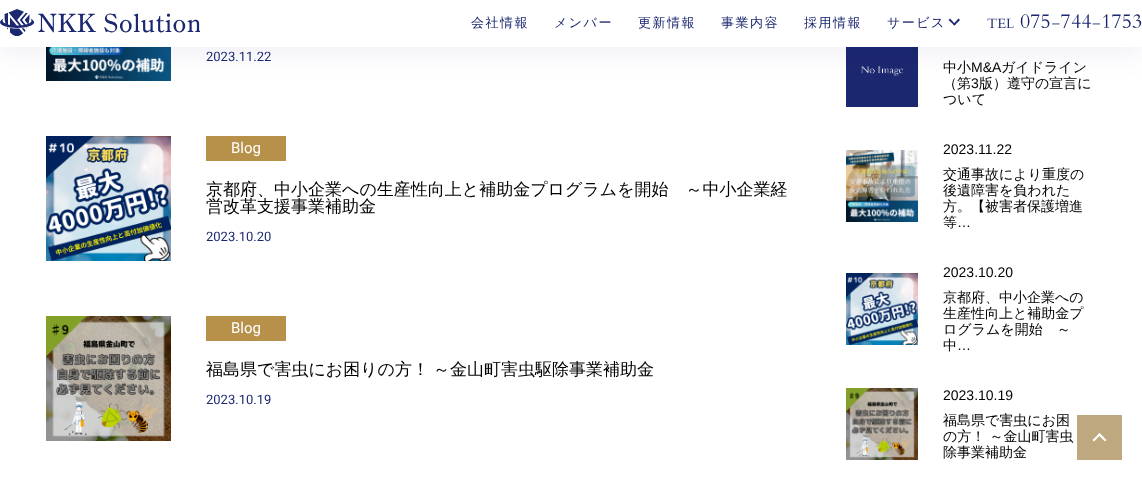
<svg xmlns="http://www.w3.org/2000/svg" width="1142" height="480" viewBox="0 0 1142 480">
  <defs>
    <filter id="blur1" x="-50%" y="-200%" width="200%" height="500%"><feGaussianBlur stdDeviation="15"/></filter>
  </defs>
  <rect width="100%" height="100%" fill="#ffffff"/>
  <image x="46" y="47" width="125" height="34" href="img2.png"/>
  <image x="846" y="47" width="72" height="60" href="img5.png"/>
  <rect x="0" y="0" width="1142" height="50" fill="#1b2970" fill-opacity="0.08" filter="url(#blur1)"/>
  <rect x="0" y="0" width="1142" height="47" fill="#ffffff"/>
  <image x="0" y="9" width="200" height="27" href="img1.png"/>
  <text x="471" y="27" font-family="WenQuanYi Zen Hei" font-size="13" font-weight="500" letter-spacing="1.5" fill="#1b2870">会社情報</text>
  <text x="554" y="27" font-family="WenQuanYi Zen Hei" font-size="13" font-weight="500" letter-spacing="1.5" fill="#1b2870">メンバー</text>
  <text x="638" y="27" font-family="WenQuanYi Zen Hei" font-size="13" font-weight="500" letter-spacing="1.5" fill="#1b2870">更新情報</text>
  <text x="721" y="27" font-family="WenQuanYi Zen Hei" font-size="13" font-weight="500" letter-spacing="1.5" fill="#1b2870">事業内容</text>
  <text x="804" y="27" font-family="WenQuanYi Zen Hei" font-size="13" font-weight="500" letter-spacing="1.5" fill="#1b2870">採用情報</text>
  <text x="887" y="27" font-family="WenQuanYi Zen Hei" font-size="13" font-weight="500" letter-spacing="1.5" fill="#1b2870">サービス</text>
  <path d="M960 20L954.5 25.5L953 24.5L958.5 18.5Z" fill="#1b2870"/>
  <path d="M955.5 24.5L954.5 25.5L948.5 20L950 18.5Z" fill="#1b2870"/>
  <text x="987" y="29" font-family="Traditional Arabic" font-size="15" fill="#1b2870">TEL</text>
  <text x="1020" y="29" font-family="Traditional Arabic" font-size="21" fill="#1b2870">075-744-1753</text>
  <text x="206" y="61" font-family="Heebo" font-size="13" fill="#1b2870">2023.11.22</text>
  <image x="46" y="136" width="125" height="125" href="img3.png"/>
  <rect x="206" y="136" width="80" height="25" fill="#b7914a"/>
  <text x="231" y="153" font-family="Heebo" font-size="15" fill="#ffffff">Blog</text>
  <text x="206" y="195" font-family="WenQuanYi Zen Hei" font-size="17" font-weight="500" fill="#000000">京都府、中小企業への生産性向上と補助金プログラムを開始　～中小企業経</text>
  <text x="206" y="212" font-family="WenQuanYi Zen Hei" font-size="17" font-weight="500" fill="#000000">営改革支援事業補助金</text>
  <text x="206" y="241" font-family="Heebo" font-size="13" fill="#1b2870">2023.10.20</text>
  <image x="46" y="316" width="125" height="125" href="img4.png"/>
  <rect x="206" y="316" width="80" height="25" fill="#b7914a"/>
  <text x="231" y="333" font-family="Heebo" font-size="15" fill="#ffffff">Blog</text>
  <text x="206" y="375" word-spacing="-1" font-family="WenQuanYi Zen Hei" font-size="17" font-weight="500" fill="#000000">福島県で害虫にお困りの方！ ～金山町害虫駆除事業補助金</text>
  <text x="206" y="404" font-family="Heebo" font-size="13" fill="#1b2870">2023.10.19</text>
  <text x="943" y="72" font-family="WenQuanYi Zen Hei" font-size="14" font-weight="500" fill="#000000">中小</text>
  <text x="971" y="72" font-family="Liberation Sans" font-size="14" fill="#000000">M&amp;A</text>
  <text x="1001" y="72" font-family="WenQuanYi Zen Hei" font-size="14" font-weight="500" fill="#000000">ガイドライン</text>
  <text x="943" y="88" font-family="WenQuanYi Zen Hei" font-size="14" font-weight="500" fill="#000000">（第</text>
  <text x="971" y="88" font-family="Liberation Sans" font-size="14" fill="#000000">3</text>
  <text x="979" y="88" font-family="WenQuanYi Zen Hei" font-size="14" font-weight="500" fill="#000000">版）遵守の宣言に</text>
  <text x="943" y="104" font-family="WenQuanYi Zen Hei" font-size="14" font-weight="500" fill="#000000">ついて</text>
  <image x="846" y="150" width="72" height="72" href="img6.png"/>
  <text x="943" y="154" font-family="Liberation Sans" font-size="14" fill="#000000">2023.11.22</text>
  <text x="943" y="179" font-family="WenQuanYi Zen Hei" font-size="14" font-weight="500" fill="#000000">交通事故により重度の</text>
  <text x="943" y="195" font-family="WenQuanYi Zen Hei" font-size="14" font-weight="500" fill="#000000">後遺障害を負われた</text>
  <text x="943" y="211" font-family="WenQuanYi Zen Hei" font-size="14" font-weight="500" fill="#000000">方。【被害者保護増進</text>
  <text x="943" y="227" font-family="WenQuanYi Zen Hei" font-size="14" font-weight="500" fill="#000000">等</text>
  <text x="957" y="227" font-family="Liberation Sans" font-size="14" fill="#000000">…</text>
  <image x="846" y="273" width="72" height="72" href="img7.png"/>
  <text x="943" y="277" font-family="Liberation Sans" font-size="14" fill="#000000">2023.10.20</text>
  <text x="943" y="302" font-family="WenQuanYi Zen Hei" font-size="14" font-weight="500" fill="#000000">京都府、中小企業への</text>
  <text x="943" y="318" font-family="WenQuanYi Zen Hei" font-size="14" font-weight="500" fill="#000000">生産性向上と補助金プ</text>
  <text x="943" y="334" font-family="WenQuanYi Zen Hei" font-size="14" font-weight="500" fill="#000000">ログラムを開始　～</text>
  <text x="943" y="350" font-family="WenQuanYi Zen Hei" font-size="14" font-weight="500" fill="#000000">中</text>
  <text x="957" y="350" font-family="Liberation Sans" font-size="14" fill="#000000">…</text>
  <image x="846" y="388" width="72" height="72" href="img8.png"/>
  <text x="943" y="400" font-family="Liberation Sans" font-size="14" fill="#000000">2023.10.19</text>
  <text x="943" y="425" font-family="WenQuanYi Zen Hei" font-size="14" font-weight="500" fill="#000000">福島県で害虫にお困</text>
  <text x="943" y="441" font-family="WenQuanYi Zen Hei" font-size="14" font-weight="500" fill="#000000">の方！ ～金山町害虫</text>
  <text x="943" y="457" font-family="WenQuanYi Zen Hei" font-size="14" font-weight="500" fill="#000000">除事業補助金</text>
  <rect x="1077" y="415" width="45" height="45" fill="#bea880"/>
  <path d="M1092.5 440L1099.5 433L1101 434.5L1094 441.5Z" fill="#ffffff"/>
  <path d="M1098 434.5L1099.5 433L1106.5 440L1105 441.5Z" fill="#ffffff"/>
</svg>
